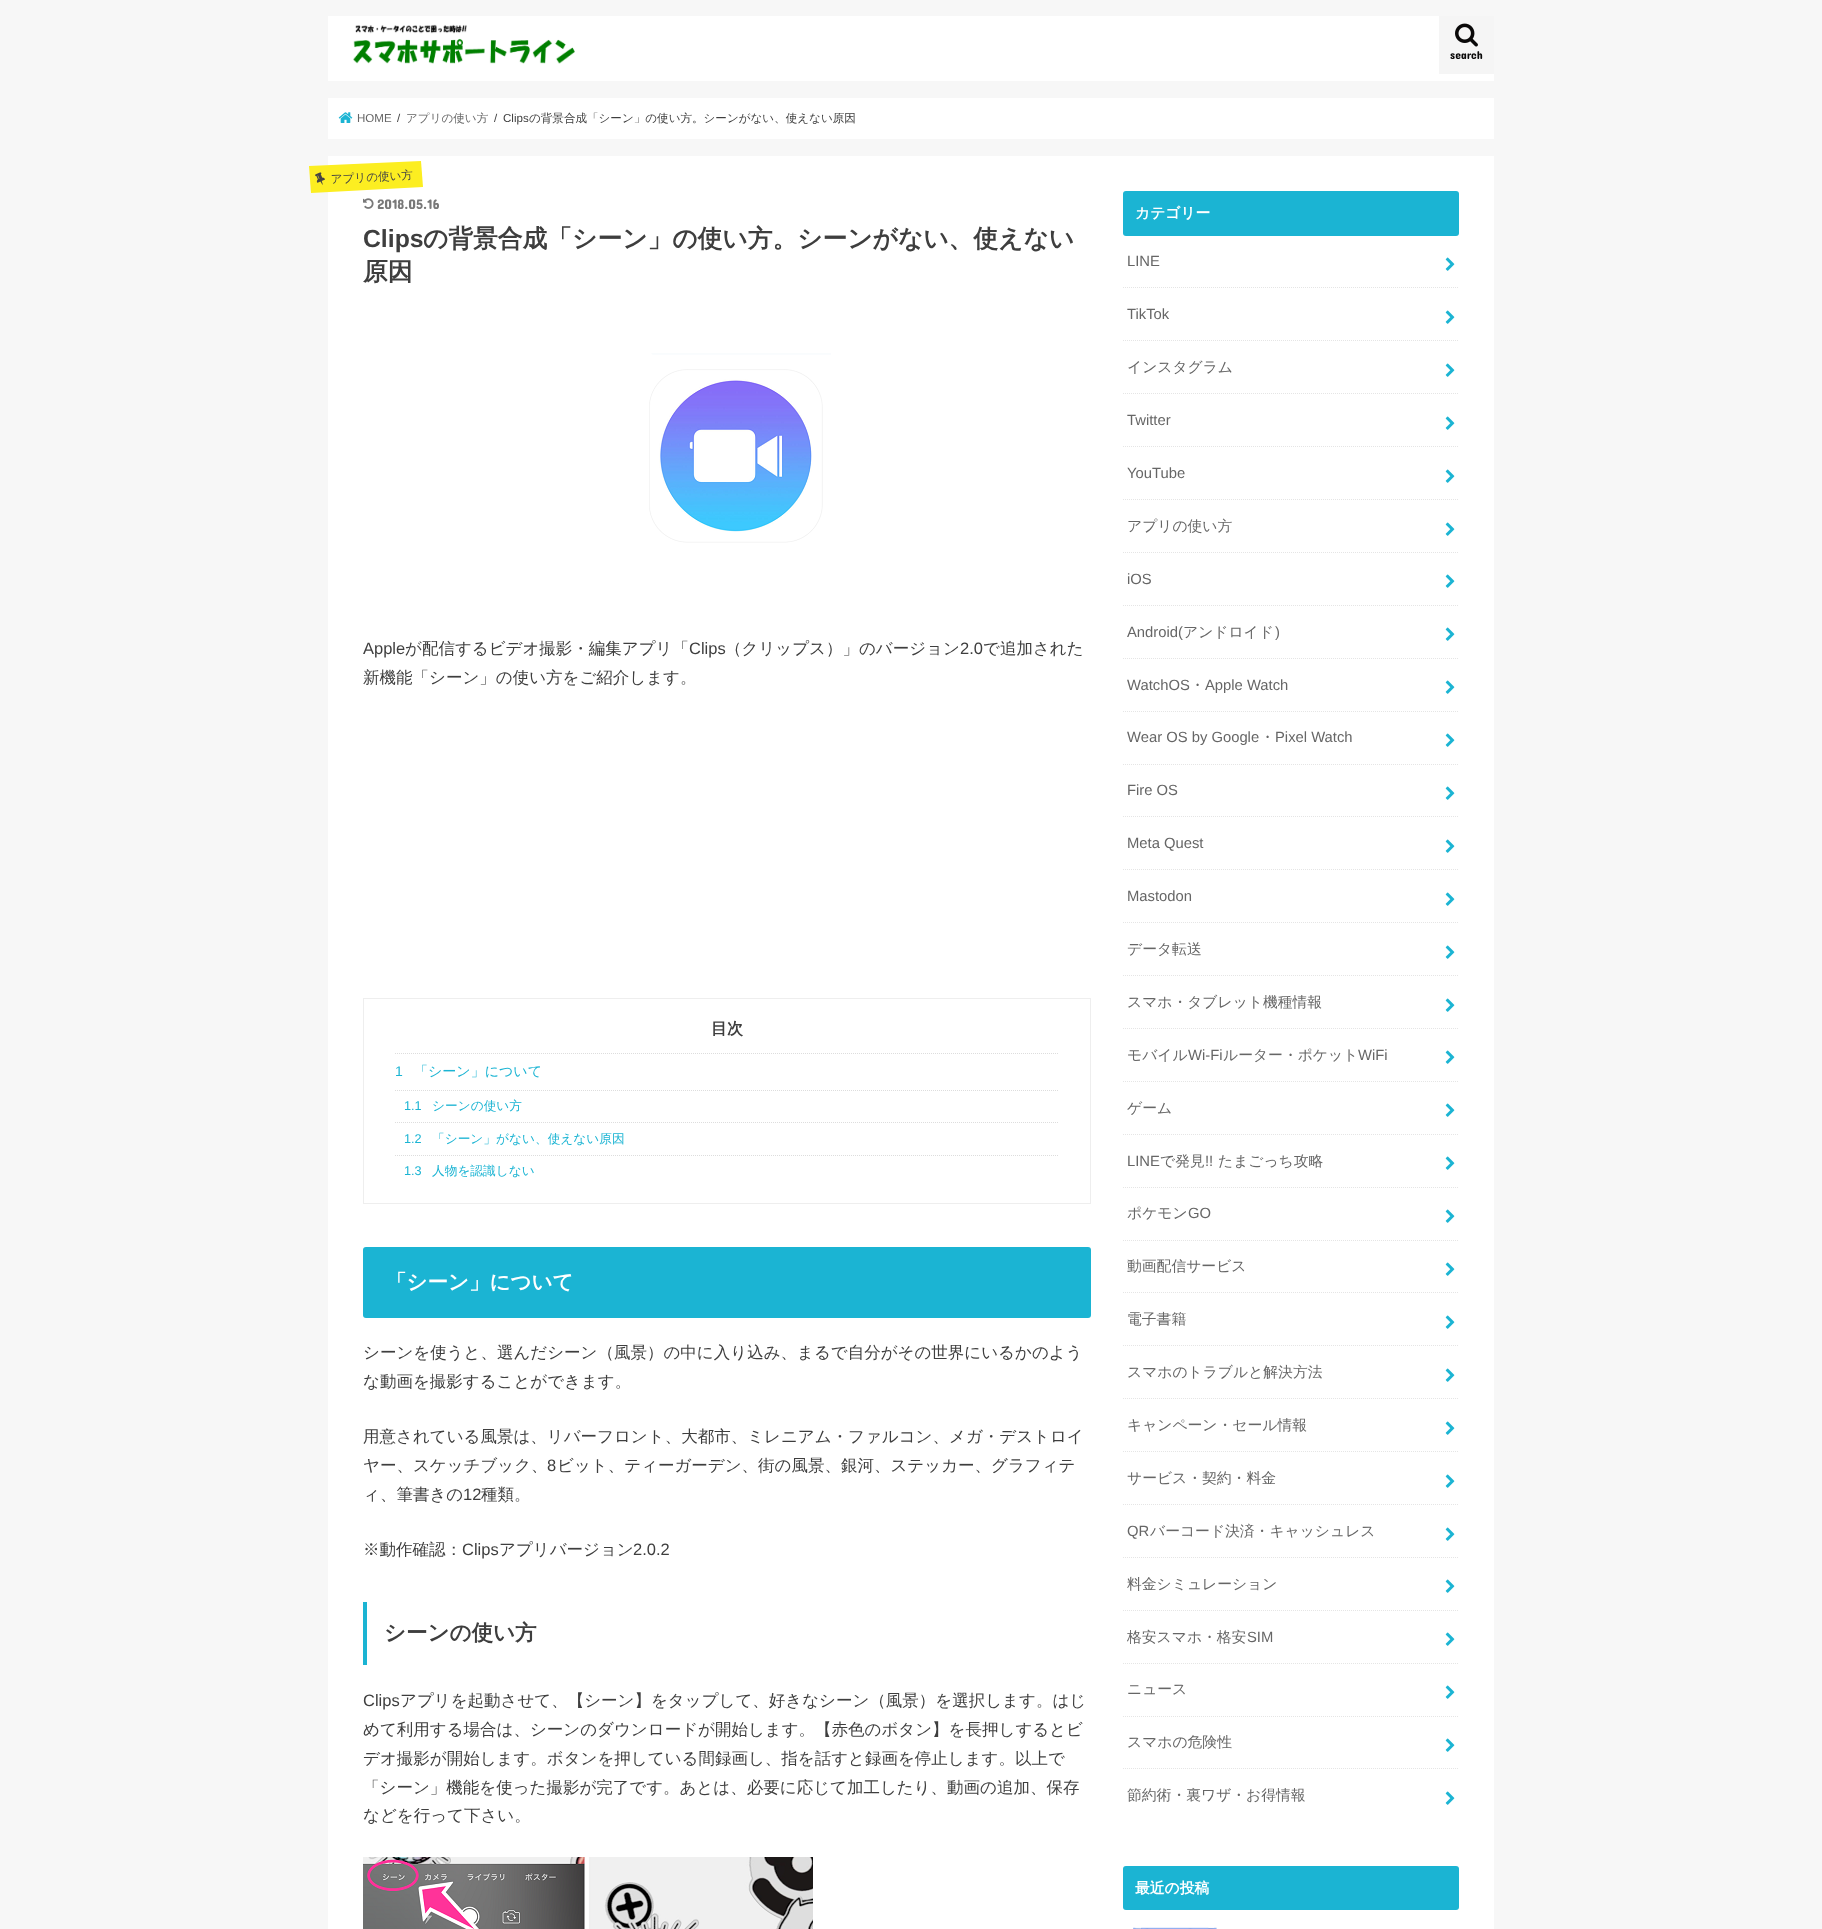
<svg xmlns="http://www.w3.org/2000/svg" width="1822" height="1929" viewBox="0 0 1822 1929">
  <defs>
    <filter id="blur1" x="-50%" y="-200%" width="200%" height="500%"><feGaussianBlur stdDeviation="0.5"/></filter>
  </defs>
  <rect width="100%" height="100%" fill="#f7f7f7"/>
  <rect x="328" y="16" width="1166" height="65" fill="#ffffff"/>
  <image x="353" y="24" width="222" height="40" href="img1.png"/>
  <rect x="1439" y="16" width="55" height="58" fill="#f5f5f5"/>
  <image x="1455" y="23" width="23" height="24" href="img2.png"/>
  <text x="1450" y="59" font-family="Concert One" font-size="11.55" fill="#0a0909">search</text>
  <rect x="328" y="98" width="1166" height="41" fill="#dddddd" filter="url(#blur1)"/>
  <rect x="328" y="98" width="1166" height="41" fill="#ffffff"/>
  <image x="338" y="112" width="15" height="11" href="img3.png"/>
  <text x="357" y="122" font-family="Liberation Sans" font-size="11.55" fill="#666666">HOME</text>
  <text x="397" y="122" font-family="Liberation Sans" font-size="11.55" fill="#3e3e3e">/</text>
  <text x="406" y="122" font-family="WenQuanYi Zen Hei" font-size="11.55" font-weight="500" fill="#666666">アプリの使い方</text>
  <text x="494" y="122" font-family="Liberation Sans" font-size="11.55" fill="#3e3e3e">/</text>
  <text x="503" y="122" font-family="Liberation Sans" font-size="11.55" fill="#3e3e3e">Clips</text>
  <text x="529" y="122" font-family="WenQuanYi Zen Hei" font-size="11.55" font-weight="500" fill="#3e3e3e">の背景合成「シーン」の使い方。シーンがない、使えない原因</text>
  <rect x="328" y="156" width="1166" height="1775" fill="#dddddd" filter="url(#blur1)"/>
  <rect x="328" y="156" width="1166" height="1773" fill="#ffffff"/>
  <path d="M309 166L421 161L423 187L311 193Z" fill="#fcee21"/>
  <image x="315" y="172" width="10" height="13" href="img4.png"/>
  <text x="331" y="183" transform="rotate(-3 331 183)" font-family="WenQuanYi Zen Hei" font-size="11.55" font-weight="500" fill="#444444">アプリの使い方</text>
  <image x="363" y="198" width="11" height="11" href="img5.png"/>
  <text x="377" y="209" font-family="Concert One" font-size="14" fill="#787878">2018.05.16</text>
  <text x="363" y="247" font-family="Liberation Sans" font-size="24.75" font-weight="bold" fill="#3e3e3e">Clips</text>
  <text x="423" y="247" font-family="WenQuanYi Zen Hei" font-size="24.75" font-weight="bold" fill="#3e3e3e">の背景合成「シーン」の使い方。シーンがない、使えない</text>
  <text x="363" y="280" font-family="WenQuanYi Zen Hei" font-size="24.75" font-weight="bold" fill="#3e3e3e">原因</text>
  <image x="649" y="353" width="182" height="190" href="img6.png"/>
  <text x="363" y="654" font-family="Liberation Sans" font-size="16.5" fill="#3e3e3e">Apple</text>
  <text x="405" y="654" font-family="WenQuanYi Zen Hei" font-size="16.5" font-weight="500" fill="#3e3e3e">が配信するビデオ撮影・編集アプリ「</text>
  <text x="689" y="654" font-family="Liberation Sans" font-size="16.5" fill="#3e3e3e">Clips</text>
  <text x="725" y="654" font-family="WenQuanYi Zen Hei" font-size="16.5" font-weight="500" fill="#3e3e3e">（クリップス）」のバージョン</text>
  <text x="960" y="654" font-family="Liberation Sans" font-size="16.5" fill="#3e3e3e">2.0</text>
  <text x="983" y="654" font-family="WenQuanYi Zen Hei" font-size="16.5" font-weight="500" fill="#3e3e3e">で追加された</text>
  <text x="363" y="683" font-family="WenQuanYi Zen Hei" font-size="16.5" font-weight="500" fill="#3e3e3e">新機能「シーン」の使い方をご紹介します。</text>
  <rect x="363.5" y="998.5" width="727" height="205" fill="none" stroke="#eeeeee"/>
  <text x="711" y="1034" font-family="WenQuanYi Zen Hei" font-size="16" font-weight="bold" fill="#3e3e3e">目次</text>
  <path d="M395 1053.5H1059" fill="none" stroke="#dddddd" stroke-dasharray="1 1"/>
  <text x="395" y="1076" font-family="Liberation Sans" font-size="14" fill="#1bb4d3">1</text>
  <text x="414" y="1076" font-family="WenQuanYi Zen Hei" font-size="14" font-weight="500" fill="#1bb4d3">「シーン」について</text>
  <path d="M395 1090.5H1059" fill="none" stroke="#dddddd" stroke-dasharray="1 1"/>
  <text x="404" y="1110" font-family="Liberation Sans" font-size="12.7" fill="#1bb4d3">1.1</text>
  <text x="432" y="1110" font-family="WenQuanYi Zen Hei" font-size="12.7" font-weight="500" fill="#1bb4d3">シーンの使い方</text>
  <path d="M395 1122.5H1059" fill="none" stroke="#dddddd" stroke-dasharray="1 1"/>
  <text x="404" y="1143" font-family="Liberation Sans" font-size="12.7" fill="#1bb4d3">1.2</text>
  <text x="432" y="1143" font-family="WenQuanYi Zen Hei" font-size="12.7" font-weight="500" fill="#1bb4d3">「シーン」がない、使えない原因</text>
  <path d="M395 1155.5H1059" fill="none" stroke="#dddddd" stroke-dasharray="1 1"/>
  <text x="404" y="1175" font-family="Liberation Sans" font-size="12.7" fill="#1bb4d3">1.3</text>
  <text x="432" y="1175" font-family="WenQuanYi Zen Hei" font-size="12.7" font-weight="500" fill="#1bb4d3">人物を認識しない</text>
  <rect x="363" y="1247" width="728" height="71" rx="3" fill="#1bb4d3"/>
  <text x="386" y="1289" font-family="WenQuanYi Zen Hei" font-size="20.5" font-weight="bold" fill="#ffffff">「シーン」について</text>
  <text x="363" y="1358" font-family="WenQuanYi Zen Hei" font-size="16.5" font-weight="500" fill="#3e3e3e">シーンを使うと、選んだシーン（風景）の中に入り込み、まるで自分がその世界にいるかのよう</text>
  <text x="363" y="1387" font-family="WenQuanYi Zen Hei" font-size="16.5" font-weight="500" fill="#3e3e3e">な動画を撮影することができます。</text>
  <text x="363" y="1442" font-family="WenQuanYi Zen Hei" font-size="16.5" font-weight="500" fill="#3e3e3e">用意されている風景は、リバーフロント、大都市、ミレニアム・ファルコン、メガ・デストロイ</text>
  <text x="363" y="1471" font-family="WenQuanYi Zen Hei" font-size="16.5" font-weight="500" fill="#3e3e3e">ヤー、スケッチブック、</text>
  <text x="547" y="1471" font-family="Liberation Sans" font-size="16.5" fill="#3e3e3e">8</text>
  <text x="557" y="1471" font-family="WenQuanYi Zen Hei" font-size="16.5" font-weight="500" fill="#3e3e3e">ビット、ティーガーデン、街の風景、銀河、ステッカー、グラフィテ</text>
  <text x="363" y="1500" font-family="WenQuanYi Zen Hei" font-size="16.5" font-weight="500" fill="#3e3e3e">ィ、筆書きの</text>
  <text x="463" y="1500" font-family="Liberation Sans" font-size="16.5" fill="#3e3e3e">12</text>
  <text x="481" y="1500" font-family="WenQuanYi Zen Hei" font-size="16.5" font-weight="500" fill="#3e3e3e">種類。</text>
  <text x="363" y="1555" font-family="WenQuanYi Zen Hei" font-size="16.5" font-weight="500" fill="#3e3e3e">※動作確認：</text>
  <text x="462" y="1555" font-family="Liberation Sans" font-size="16.5" fill="#3e3e3e">Clips</text>
  <text x="499" y="1555" font-family="WenQuanYi Zen Hei" font-size="16.5" font-weight="500" fill="#3e3e3e">アプリバージョン</text>
  <text x="633" y="1555" font-family="Liberation Sans" font-size="16.5" fill="#3e3e3e">2.0.2</text>
  <rect x="363" y="1602" width="4" height="63" fill="#1bb4d3"/>
  <text x="384" y="1640" font-family="WenQuanYi Zen Hei" font-size="21.5" font-weight="bold" fill="#3e3e3e">シーンの使い方</text>
  <text x="363" y="1706" font-family="Liberation Sans" font-size="16.5" fill="#3e3e3e">Clips</text>
  <text x="400" y="1706" font-family="WenQuanYi Zen Hei" font-size="16.5" font-weight="500" fill="#3e3e3e">アプリを起動させて、【シーン】をタップして、好きなシーン（風景）を選択します。はじ</text>
  <text x="363" y="1735" font-family="WenQuanYi Zen Hei" font-size="16.5" font-weight="500" fill="#3e3e3e">めて利用する場合は、シーンのダウンロードが開始します。【赤色のボタン】を長押しするとビ</text>
  <text x="363" y="1764" font-family="WenQuanYi Zen Hei" font-size="16.5" font-weight="500" fill="#3e3e3e">デオ撮影が開始します。ボタンを押している間録画し、指を話すと録画を停止します。以上で</text>
  <text x="363" y="1793" font-family="WenQuanYi Zen Hei" font-size="16.5" font-weight="500" fill="#3e3e3e">「シーン」機能を使った撮影が完了です。あとは、必要に応じて加工したり、動画の追加、保存</text>
  <text x="363" y="1821" font-family="WenQuanYi Zen Hei" font-size="16.5" font-weight="500" fill="#3e3e3e">などを行って下さい。</text>
  <image x="363" y="1857" width="450" height="72" href="img7.png"/>
  <rect x="1123" y="191" width="336" height="45" rx="3" fill="#1bb4d3"/>
  <text x="1135" y="218" font-family="WenQuanYi Zen Hei" font-size="14.8" font-weight="bold" fill="#ffffff">カテゴリー</text>
  <path d="M1123 287.5H1459" fill="none" stroke="#e5e5e5" stroke-dasharray="1 1"/>
  <text x="1127" y="266" font-family="Liberation Sans" font-size="14.8" fill="#666666">LINE</text>
  <image x="1445" y="257" width="10" height="14" href="img8.png"/>
  <path d="M1123 340.5H1459" fill="none" stroke="#e5e5e5" stroke-dasharray="1 1"/>
  <text x="1127" y="319" font-family="Liberation Sans" font-size="14.8" fill="#666666">TikTok</text>
  <image x="1445" y="310" width="10" height="14" href="img8.png"/>
  <path d="M1123 393.5H1459" fill="none" stroke="#e5e5e5" stroke-dasharray="1 1"/>
  <text x="1127" y="372" font-family="WenQuanYi Zen Hei" font-size="14.8" font-weight="500" fill="#666666">インスタグラム</text>
  <image x="1445" y="363" width="10" height="14" href="img8.png"/>
  <path d="M1123 446.5H1459" fill="none" stroke="#e5e5e5" stroke-dasharray="1 1"/>
  <text x="1127" y="425" font-family="Liberation Sans" font-size="14.8" fill="#666666">Twitter</text>
  <image x="1445" y="416" width="10" height="14" href="img8.png"/>
  <path d="M1123 499.5H1459" fill="none" stroke="#e5e5e5" stroke-dasharray="1 1"/>
  <text x="1127" y="478" font-family="Liberation Sans" font-size="14.8" fill="#666666">YouTube</text>
  <image x="1445" y="469" width="10" height="14" href="img8.png"/>
  <path d="M1123 552.5H1459" fill="none" stroke="#e5e5e5" stroke-dasharray="1 1"/>
  <text x="1127" y="531" font-family="WenQuanYi Zen Hei" font-size="14.8" font-weight="500" fill="#666666">アプリの使い方</text>
  <image x="1445" y="522" width="10" height="14" href="img8.png"/>
  <path d="M1123 605.5H1459" fill="none" stroke="#e5e5e5" stroke-dasharray="1 1"/>
  <text x="1127" y="584" font-family="Liberation Sans" font-size="14.8" fill="#666666">iOS</text>
  <image x="1445" y="574" width="10" height="14" href="img8.png"/>
  <path d="M1123 658.5H1459" fill="none" stroke="#e5e5e5" stroke-dasharray="1 1"/>
  <text x="1127" y="637" font-family="Liberation Sans" font-size="14.8" fill="#666666">Android(</text>
  <text x="1183" y="637" font-family="WenQuanYi Zen Hei" font-size="14.8" font-weight="500" fill="#666666">アンドロイド</text>
  <text x="1275" y="637" font-family="Liberation Sans" font-size="14.8" fill="#666666">)</text>
  <image x="1445" y="627" width="10" height="14" href="img8.png"/>
  <path d="M1123 711.5H1459" fill="none" stroke="#e5e5e5" stroke-dasharray="1 1"/>
  <text x="1127" y="690" font-family="Liberation Sans" font-size="14.8" fill="#666666">WatchOS</text>
  <text x="1190" y="690" font-family="WenQuanYi Zen Hei" font-size="14.8" font-weight="500" fill="#666666">・</text>
  <text x="1205" y="690" font-family="Liberation Sans" font-size="14.8" fill="#666666">Apple Watch</text>
  <image x="1445" y="680" width="10" height="14" href="img8.png"/>
  <path d="M1123 764.5H1459" fill="none" stroke="#e5e5e5" stroke-dasharray="1 1"/>
  <text x="1127" y="742" font-family="Liberation Sans" font-size="14.8" fill="#666666">Wear OS by Google</text>
  <text x="1260" y="742" font-family="WenQuanYi Zen Hei" font-size="14.8" font-weight="500" fill="#666666">・</text>
  <text x="1275" y="742" font-family="Liberation Sans" font-size="14.8" fill="#666666">Pixel Watch</text>
  <image x="1445" y="733" width="10" height="14" href="img8.png"/>
  <path d="M1123 816.5H1459" fill="none" stroke="#e5e5e5" stroke-dasharray="1 1"/>
  <text x="1127" y="795" font-family="Liberation Sans" font-size="14.8" fill="#666666">Fire OS</text>
  <image x="1445" y="786" width="10" height="14" href="img8.png"/>
  <path d="M1123 869.5H1459" fill="none" stroke="#e5e5e5" stroke-dasharray="1 1"/>
  <text x="1127" y="848" font-family="Liberation Sans" font-size="14.8" fill="#666666">Meta Quest</text>
  <image x="1445" y="839" width="10" height="14" href="img8.png"/>
  <path d="M1123 922.5H1459" fill="none" stroke="#e5e5e5" stroke-dasharray="1 1"/>
  <text x="1127" y="901" font-family="Liberation Sans" font-size="14.8" fill="#666666">Mastodon</text>
  <image x="1445" y="892" width="10" height="14" href="img8.png"/>
  <path d="M1123 975.5H1459" fill="none" stroke="#e5e5e5" stroke-dasharray="1 1"/>
  <text x="1127" y="954" font-family="WenQuanYi Zen Hei" font-size="14.8" font-weight="500" fill="#666666">データ転送</text>
  <image x="1445" y="945" width="10" height="14" href="img8.png"/>
  <path d="M1123 1028.5H1459" fill="none" stroke="#e5e5e5" stroke-dasharray="1 1"/>
  <text x="1127" y="1007" font-family="WenQuanYi Zen Hei" font-size="14.8" font-weight="500" fill="#666666">スマホ・タブレット機種情報</text>
  <image x="1445" y="998" width="10" height="14" href="img8.png"/>
  <path d="M1123 1081.5H1459" fill="none" stroke="#e5e5e5" stroke-dasharray="1 1"/>
  <text x="1127" y="1060" font-family="WenQuanYi Zen Hei" font-size="14.8" font-weight="500" fill="#666666">モバイル</text>
  <text x="1188" y="1060" font-family="Liberation Sans" font-size="14.8" fill="#666666">Wi-Fi</text>
  <text x="1223" y="1060" font-family="WenQuanYi Zen Hei" font-size="14.8" font-weight="500" fill="#666666">ルーター・ポケット</text>
  <text x="1358" y="1060" font-family="Liberation Sans" font-size="14.8" fill="#666666">WiFi</text>
  <image x="1445" y="1050" width="10" height="14" href="img8.png"/>
  <path d="M1123 1134.5H1459" fill="none" stroke="#e5e5e5" stroke-dasharray="1 1"/>
  <text x="1127" y="1113" font-family="WenQuanYi Zen Hei" font-size="14.8" font-weight="500" fill="#666666">ゲーム</text>
  <image x="1445" y="1103" width="10" height="14" href="img8.png"/>
  <path d="M1123 1187.5H1459" fill="none" stroke="#e5e5e5" stroke-dasharray="1 1"/>
  <text x="1127" y="1166" font-family="Liberation Sans" font-size="14.8" fill="#666666">LINE</text>
  <text x="1160" y="1166" font-family="WenQuanYi Zen Hei" font-size="14.8" font-weight="500" fill="#666666">で発見</text>
  <text x="1205" y="1166" font-family="Liberation Sans" font-size="14.8" fill="#666666">!!</text>
  <text x="1218" y="1166" font-family="WenQuanYi Zen Hei" font-size="14.8" font-weight="500" fill="#666666">たまごっち攻略</text>
  <image x="1445" y="1156" width="10" height="14" href="img8.png"/>
  <path d="M1123 1240.5H1459" fill="none" stroke="#e5e5e5" stroke-dasharray="1 1"/>
  <text x="1127" y="1218" font-family="WenQuanYi Zen Hei" font-size="14.8" font-weight="500" fill="#666666">ポケモン</text>
  <text x="1188" y="1218" font-family="Liberation Sans" font-size="14.8" fill="#666666">GO</text>
  <image x="1445" y="1209" width="10" height="14" href="img8.png"/>
  <path d="M1123 1292.5H1459" fill="none" stroke="#e5e5e5" stroke-dasharray="1 1"/>
  <text x="1127" y="1271" font-family="WenQuanYi Zen Hei" font-size="14.8" font-weight="500" fill="#666666">動画配信サービス</text>
  <image x="1445" y="1262" width="10" height="14" href="img8.png"/>
  <path d="M1123 1345.5H1459" fill="none" stroke="#e5e5e5" stroke-dasharray="1 1"/>
  <text x="1127" y="1324" font-family="WenQuanYi Zen Hei" font-size="14.8" font-weight="500" fill="#666666">電子書籍</text>
  <image x="1445" y="1315" width="10" height="14" href="img8.png"/>
  <path d="M1123 1398.5H1459" fill="none" stroke="#e5e5e5" stroke-dasharray="1 1"/>
  <text x="1127" y="1377" font-family="WenQuanYi Zen Hei" font-size="14.8" font-weight="500" fill="#666666">スマホのトラブルと解決方法</text>
  <image x="1445" y="1368" width="10" height="14" href="img8.png"/>
  <path d="M1123 1451.5H1459" fill="none" stroke="#e5e5e5" stroke-dasharray="1 1"/>
  <text x="1127" y="1430" font-family="WenQuanYi Zen Hei" font-size="14.8" font-weight="500" fill="#666666">キャンペーン・セール情報</text>
  <image x="1445" y="1421" width="10" height="14" href="img8.png"/>
  <path d="M1123 1504.5H1459" fill="none" stroke="#e5e5e5" stroke-dasharray="1 1"/>
  <text x="1127" y="1483" font-family="WenQuanYi Zen Hei" font-size="14.8" font-weight="500" fill="#666666">サービス・契約・料金</text>
  <image x="1445" y="1474" width="10" height="14" href="img8.png"/>
  <path d="M1123 1557.5H1459" fill="none" stroke="#e5e5e5" stroke-dasharray="1 1"/>
  <text x="1127" y="1536" font-family="Liberation Sans" font-size="14.8" fill="#666666">QR</text>
  <text x="1150" y="1536" font-family="WenQuanYi Zen Hei" font-size="14.8" font-weight="500" fill="#666666">バーコード決済・キャッシュレス</text>
  <image x="1445" y="1527" width="10" height="14" href="img8.png"/>
  <path d="M1123 1610.5H1459" fill="none" stroke="#e5e5e5" stroke-dasharray="1 1"/>
  <text x="1127" y="1589" font-family="WenQuanYi Zen Hei" font-size="14.8" font-weight="500" fill="#666666">料金シミュレーション</text>
  <image x="1445" y="1579" width="10" height="14" href="img8.png"/>
  <path d="M1123 1663.5H1459" fill="none" stroke="#e5e5e5" stroke-dasharray="1 1"/>
  <text x="1127" y="1642" font-family="WenQuanYi Zen Hei" font-size="14.8" font-weight="500" fill="#666666">格安スマホ・格安</text>
  <text x="1247" y="1642" font-family="Liberation Sans" font-size="14.8" fill="#666666">SIM</text>
  <image x="1445" y="1632" width="10" height="14" href="img8.png"/>
  <path d="M1123 1716.5H1459" fill="none" stroke="#e5e5e5" stroke-dasharray="1 1"/>
  <text x="1127" y="1694" font-family="WenQuanYi Zen Hei" font-size="14.8" font-weight="500" fill="#666666">ニュース</text>
  <image x="1445" y="1685" width="10" height="14" href="img8.png"/>
  <path d="M1123 1768.5H1459" fill="none" stroke="#e5e5e5" stroke-dasharray="1 1"/>
  <text x="1127" y="1747" font-family="WenQuanYi Zen Hei" font-size="14.8" font-weight="500" fill="#666666">スマホの危険性</text>
  <image x="1445" y="1738" width="10" height="14" href="img8.png"/>
  <text x="1127" y="1800" font-family="WenQuanYi Zen Hei" font-size="14.8" font-weight="500" fill="#666666">節約術・裏ワザ・お得情報</text>
  <image x="1445" y="1791" width="10" height="14" href="img8.png"/>
  <rect x="1123" y="1866" width="336" height="44" rx="3" fill="#1bb4d3"/>
  <text x="1135" y="1893" font-family="WenQuanYi Zen Hei" font-size="14.8" font-weight="bold" fill="#ffffff">最近の投稿</text>
  <image x="1133" y="1927" width="84" height="2" href="img9.png"/>
</svg>
